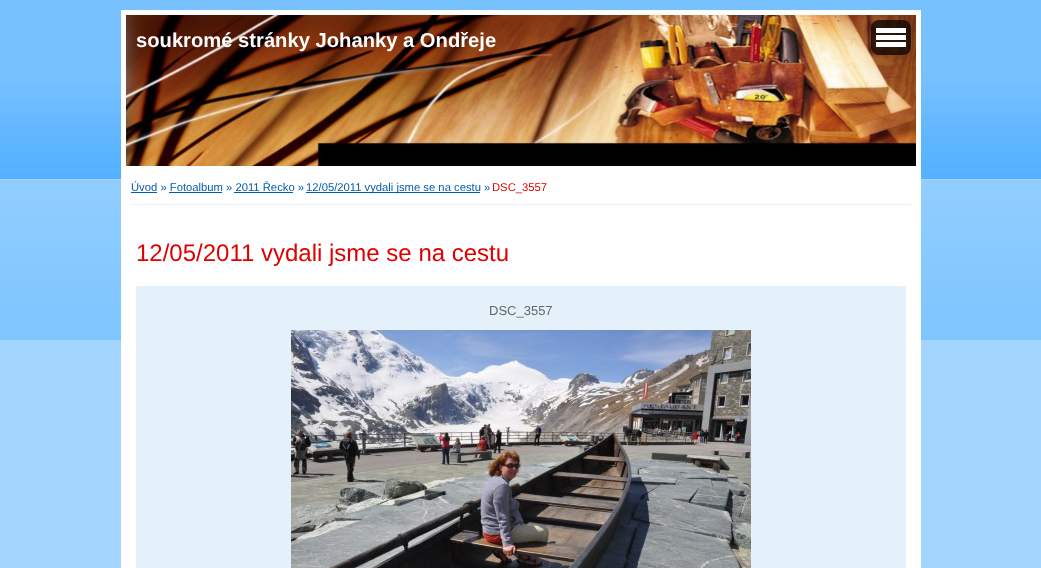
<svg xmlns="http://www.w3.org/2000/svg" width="1041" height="568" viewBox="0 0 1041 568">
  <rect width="100%" height="100%" fill="#a4d5ff"/>
  <image x="0" y="0" width="1041" height="340" href="img1.png"/>
  <image x="126" y="15" width="790" height="151" href="img2.png"/>
  <rect x="123.5" y="12.5" width="795" height="156" fill="none" stroke="#ffffff" stroke-width="5"/>
  <text x="136" y="47" font-family="Liberation Sans" font-size="20.2" font-weight="bold" fill="#ffffff">soukromé stránky Johanky a Ondřeje</text>
  <rect x="871" y="20" width="40" height="35" rx="8" fill="#000000" fill-opacity="0.7"/>
  <rect x="876" y="28" width="30" height="5" fill="#ffffff"/>
  <rect x="876" y="35" width="30" height="5" fill="#ffffff"/>
  <rect x="876" y="42" width="30" height="5" fill="#ffffff"/>
  <rect x="121" y="171" width="800" height="397" fill="#ffffff"/>
  <rect x="131" y="204" width="780" height="1" fill="#e4f0fa"/>
  <text x="131" y="191" font-family="Liberation Sans" font-size="11.25" fill="#005eb1">Úvod » Fotoalbum » 2011 Řecko »</text>
  <rect x="131" y="192" width="26" height="1" fill="#005eb1"/>
  <rect x="306" y="192" width="174" height="1" fill="#005eb1"/>
  <text x="306" y="191" font-family="Liberation Sans" font-size="11.25" fill="#005eb1">12/05/2011 vydali jsme se na cestu »</text>
  <text x="492" y="191" font-family="Liberation Sans" font-size="11.25" fill="#df0000">DSC_3557</text>
  <rect x="169" y="192" width="53" height="1" fill="#005eb1"/>
  <rect x="234" y="192" width="59" height="1" fill="#005eb1"/>
  <text x="136" y="261" font-family="Liberation Sans" font-size="24" fill="#df0000">12/05/2011 vydali jsme se na cestu</text>
  <rect x="136" y="286" width="770" height="282" fill="#e4f0fa"/>
  <text x="489" y="315" font-family="Liberation Sans" font-size="13" fill="#666666">DSC_3557</text>
  <image x="291" y="330" width="460" height="238" href="img3.png"/>
</svg>
